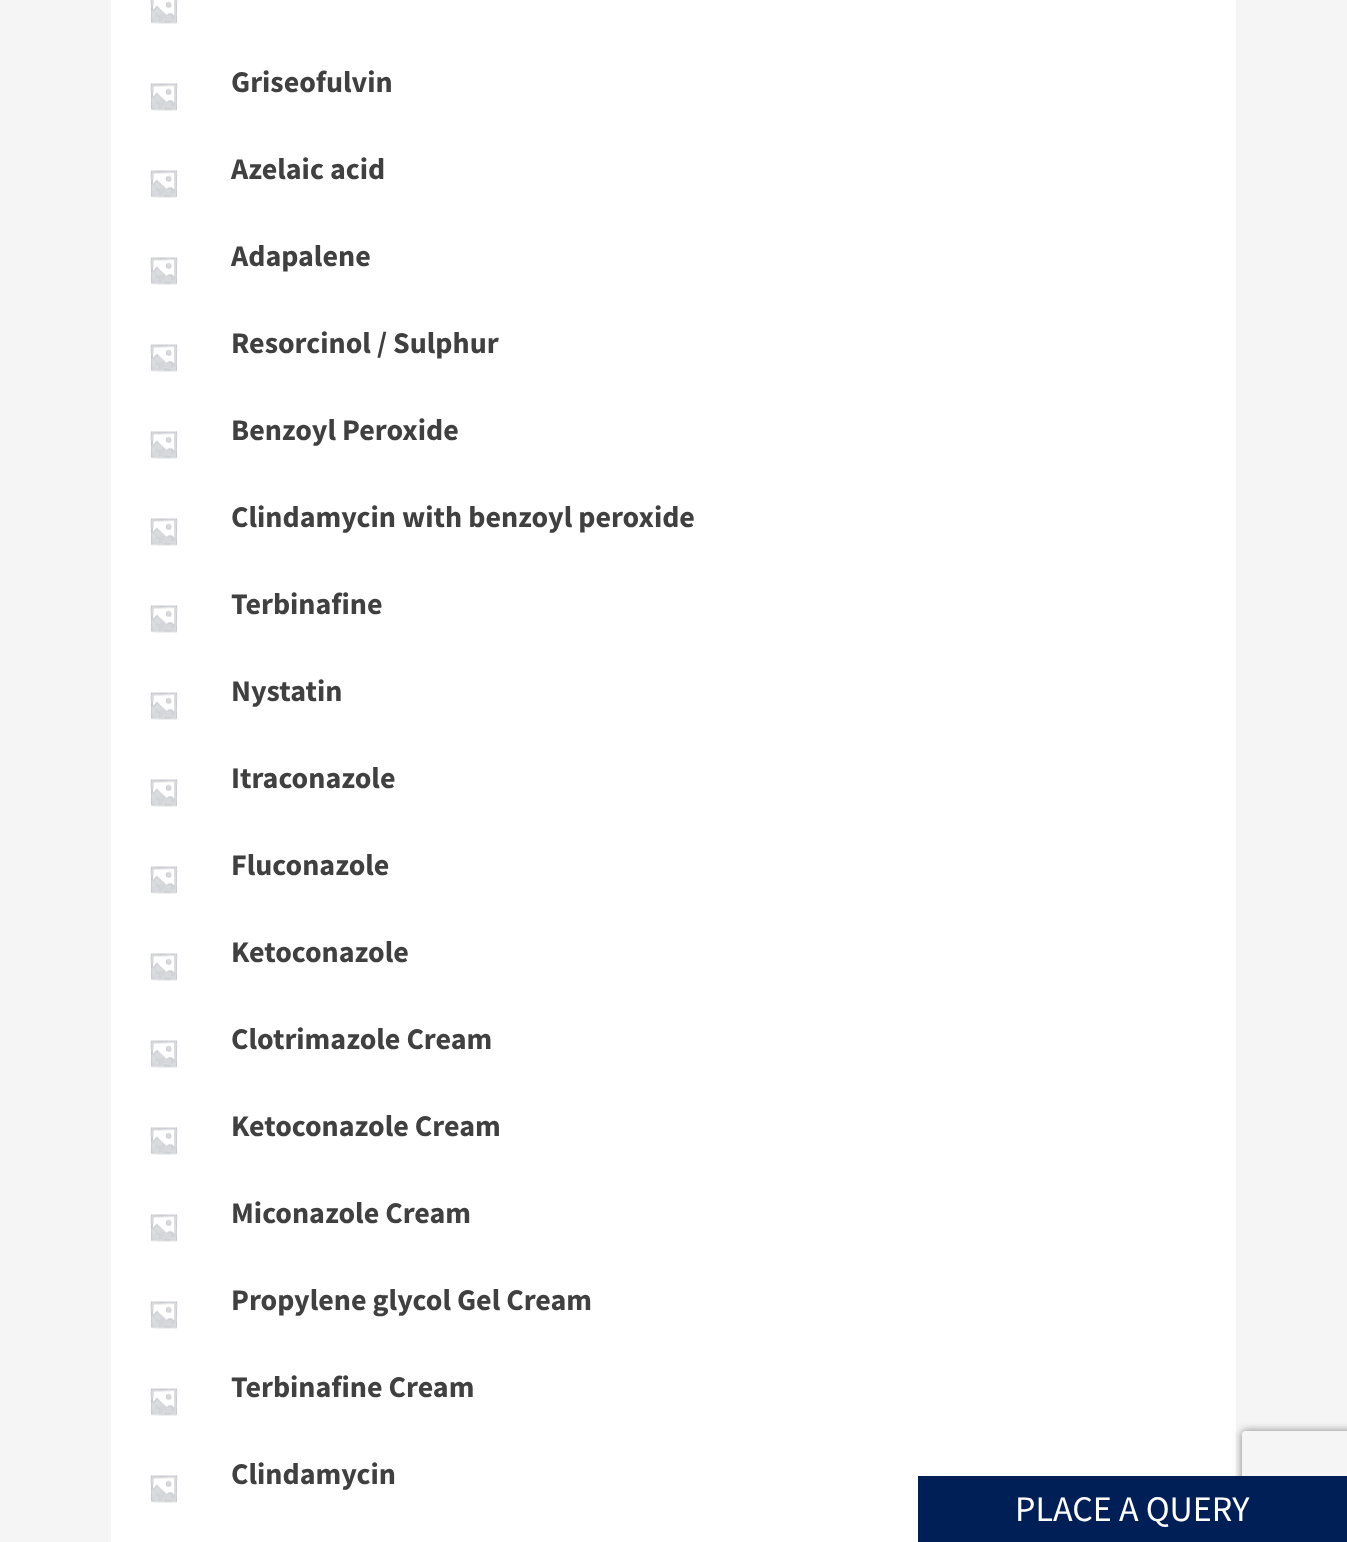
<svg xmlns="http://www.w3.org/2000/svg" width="1347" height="1542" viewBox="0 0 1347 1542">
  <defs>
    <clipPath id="clip1"><path d="M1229 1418H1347V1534H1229ZM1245 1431H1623C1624.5 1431 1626 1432.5 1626 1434V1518C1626 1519.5 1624.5 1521 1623 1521H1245C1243.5 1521 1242 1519.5 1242 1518V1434C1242 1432.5 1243.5 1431 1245 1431Z" clip-rule="evenodd"/></clipPath>
    <filter id="blur1" x="-50%" y="-200%" width="200%" height="500%"><feGaussianBlur stdDeviation="4"/></filter>
  </defs>
  <rect width="100%" height="100%" fill="#f5f5f5"/>
  <rect x="111" y="0" width="1125" height="1542" fill="#ffffff"/>
  <image x="150" y="0" width="28" height="24" href="img1.png"/>
  <image x="150" y="83" width="28" height="28" href="img2.png"/>
  <text x="231" y="92" font-family="Source Sans Pro" font-size="30" font-weight="bold" fill="#404040">Griseofulvin</text>
  <image x="150" y="170" width="28" height="28" href="img2.png"/>
  <text x="231" y="179" font-family="Source Sans Pro" font-size="30" font-weight="bold" fill="#404040">Azelaic acid</text>
  <image x="150" y="257" width="28" height="28" href="img2.png"/>
  <text x="231" y="266" font-family="Source Sans Pro" font-size="30" font-weight="bold" fill="#404040">Adapalene</text>
  <image x="150" y="344" width="28" height="28" href="img2.png"/>
  <text x="231" y="353" font-family="Source Sans Pro" font-size="30" font-weight="bold" fill="#404040">Resorcinol / Sulphur</text>
  <image x="150" y="431" width="28" height="28" href="img2.png"/>
  <text x="231" y="440" font-family="Source Sans Pro" font-size="30" font-weight="bold" fill="#404040">Benzoyl Peroxide</text>
  <image x="150" y="518" width="28" height="28" href="img2.png"/>
  <text x="231" y="527" font-family="Source Sans Pro" font-size="30" font-weight="bold" fill="#404040">Clindamycin with benzoyl peroxide</text>
  <image x="150" y="605" width="28" height="28" href="img2.png"/>
  <text x="231" y="614" font-family="Source Sans Pro" font-size="30" font-weight="bold" fill="#404040">Terbinafine</text>
  <image x="150" y="692" width="28" height="28" href="img2.png"/>
  <text x="231" y="701" font-family="Source Sans Pro" font-size="30" font-weight="bold" fill="#404040">Nystatin</text>
  <image x="150" y="779" width="28" height="28" href="img2.png"/>
  <text x="231" y="788" font-family="Source Sans Pro" font-size="30" font-weight="bold" fill="#404040">Itraconazole</text>
  <image x="150" y="866" width="28" height="28" href="img2.png"/>
  <text x="231" y="875" font-family="Source Sans Pro" font-size="30" font-weight="bold" fill="#404040">Fluconazole</text>
  <image x="150" y="953" width="28" height="28" href="img2.png"/>
  <text x="231" y="962" font-family="Source Sans Pro" font-size="30" font-weight="bold" fill="#404040">Ketoconazole</text>
  <image x="150" y="1040" width="28" height="28" href="img2.png"/>
  <text x="231" y="1049" font-family="Source Sans Pro" font-size="30" font-weight="bold" fill="#404040">Clotrimazole Cream</text>
  <image x="150" y="1127" width="28" height="28" href="img2.png"/>
  <text x="231" y="1136" font-family="Source Sans Pro" font-size="30" font-weight="bold" fill="#404040">Ketoconazole Cream</text>
  <image x="150" y="1214" width="28" height="28" href="img2.png"/>
  <text x="231" y="1223" font-family="Source Sans Pro" font-size="30" font-weight="bold" fill="#404040">Miconazole Cream</text>
  <image x="150" y="1301" width="28" height="28" href="img2.png"/>
  <text x="231" y="1310" font-family="Source Sans Pro" font-size="30" font-weight="bold" fill="#404040">Propylene glycol Gel Cream</text>
  <image x="150" y="1388" width="28" height="28" href="img2.png"/>
  <text x="231" y="1397" font-family="Source Sans Pro" font-size="30" font-weight="bold" fill="#404040">Terbinafine Cream</text>
  <image x="150" y="1475" width="28" height="28" href="img2.png"/>
  <text x="231" y="1484" font-family="Source Sans Pro" font-size="30" font-weight="bold" fill="#404040">Clindamycin</text>
  <g clip-path="url(#clip1)">
    <rect x="1242" y="1431" width="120" height="90" rx="3" fill="#808080" filter="url(#blur1)"/>
  </g>
  <rect x="918" y="1476" width="429" height="66" fill="#001f57"/>
  <text x="1015" y="1521" font-family="Source Sans Pro" font-size="36" fill="#ffffff">PLACE A QUERY</text>
</svg>
